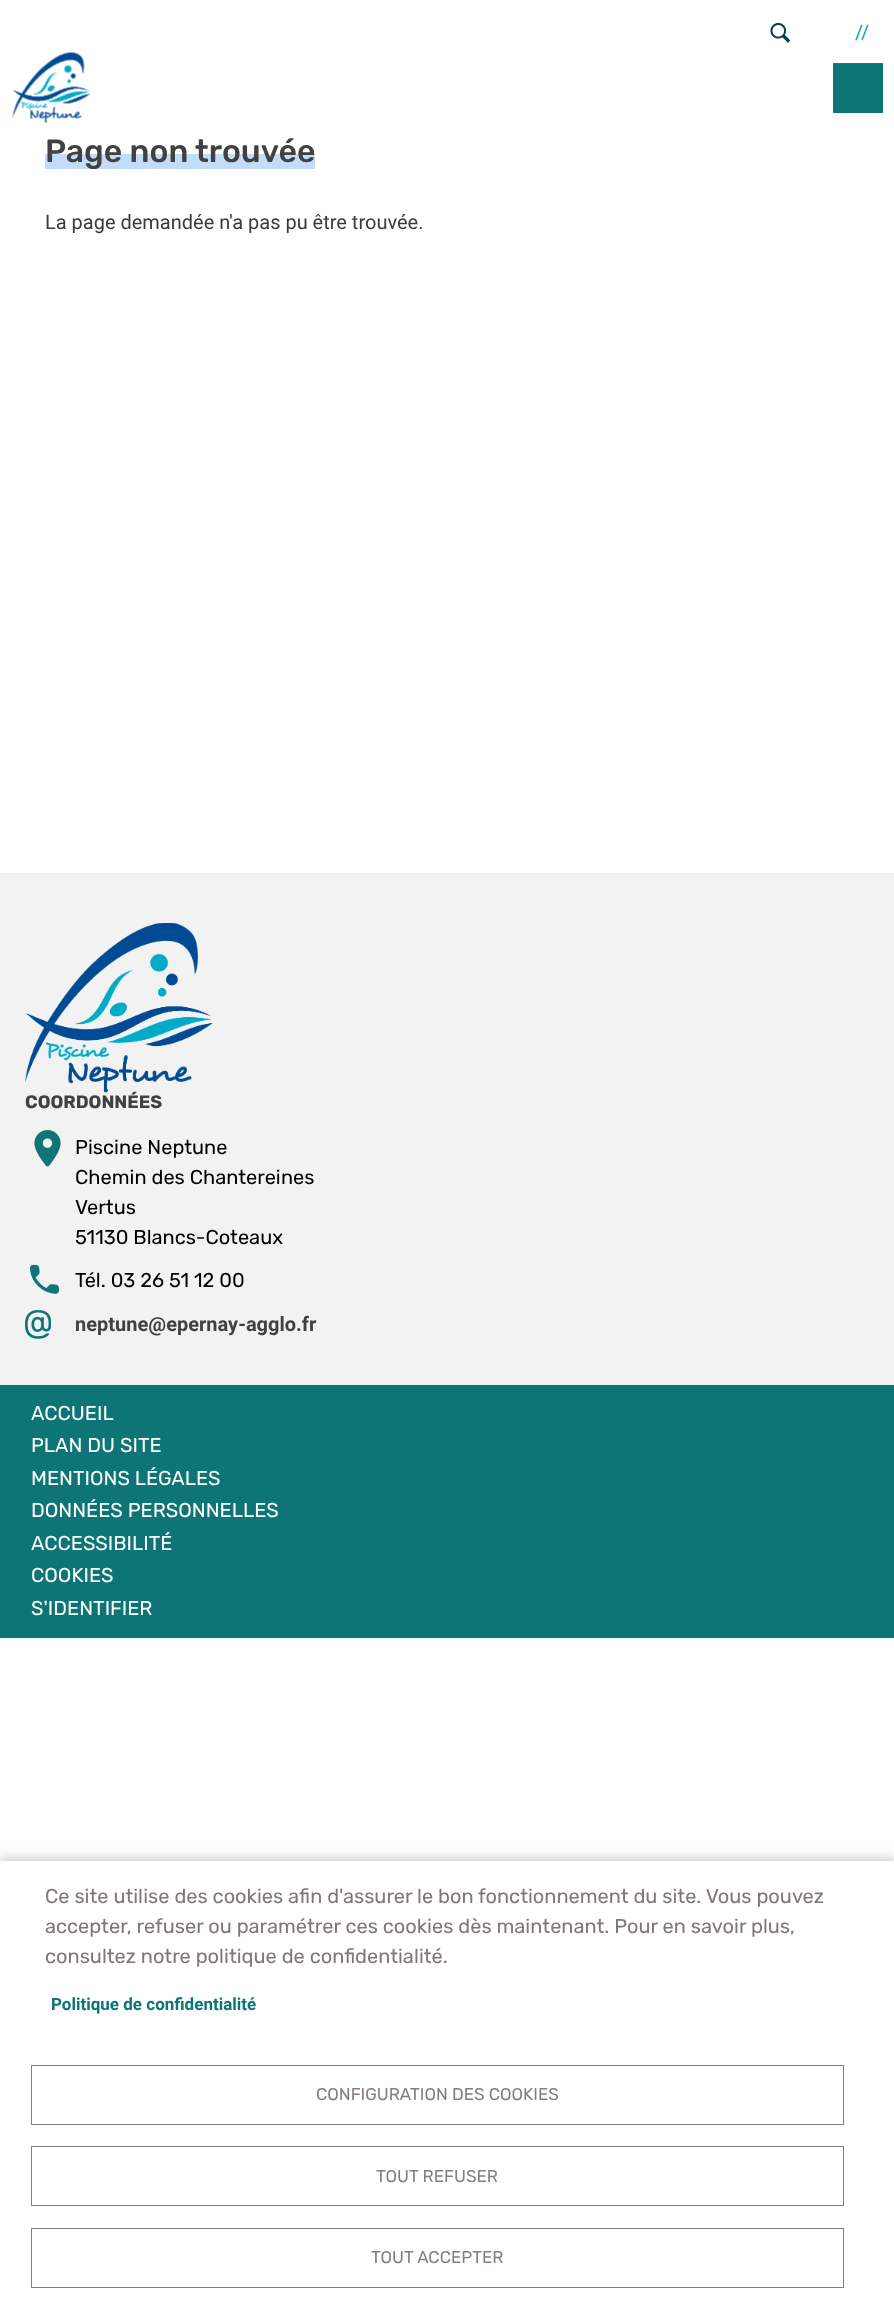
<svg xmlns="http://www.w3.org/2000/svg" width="894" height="2317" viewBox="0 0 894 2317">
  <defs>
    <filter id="blur1" x="-50%" y="-200%" width="200%" height="500%"><feGaussianBlur stdDeviation="6"/></filter>
  </defs>
  <rect width="100%" height="100%" fill="#ffffff"/>
  <image x="770" y="22" width="21" height="21" href="img1.png"/>
  <text x="855" y="39" font-family="Roboto" font-size="20" fill="#00adb1">//</text>
  <image x="12" y="52" width="79" height="71" href="img2.png"/>
  <rect x="833" y="64" width="50" height="49" fill="#0e7577"/>
  <rect x="833" y="63" width="50" height="1" fill="#1a7c7e"/>
  <rect x="45" y="154" width="270" height="15" fill="#c2dcfa"/>
  <text x="45" y="162" font-family="Rubik" font-size="32" font-weight="300" fill="#414141">Page non trouvée</text>
  <text x="45" y="229" font-family="Roboto" font-size="20" fill="#3b3b3b">La page demandée n'a pas pu être trouvée.</text>
  <rect x="0" y="873" width="894" height="512" fill="#f2f2f2"/>
  <image x="25" y="923" width="188" height="170" href="img3.png"/>
  <text x="25" y="1108" font-family="'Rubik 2'" font-size="18" font-weight="300" fill="#414141">COORDONNÉES</text>
  <image x="34" y="1130" width="27" height="37" href="img4.png"/>
  <text x="75" y="1154" font-family="'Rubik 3'" font-size="20" font-weight="300" fill="#000000">Piscine Neptune</text>
  <text x="75" y="1184" font-family="'Rubik 3'" font-size="20" font-weight="300" fill="#000000">Chemin des Chantereines</text>
  <text x="75" y="1214" font-family="'Rubik 3'" font-size="20" font-weight="300" fill="#000000">Vertus</text>
  <text x="75" y="1244" font-family="'Rubik 3'" font-size="20" font-weight="300" fill="#000000">51130 Blancs-Coteaux</text>
  <image x="29" y="1264" width="30" height="30" href="img5.png"/>
  <text x="75" y="1287" font-family="'Rubik 3'" font-size="20" font-weight="300" fill="#000000">Tél. 03 26 51 12 00</text>
  <image x="25" y="1310" width="26" height="29" href="img6.png"/>
  <text x="75" y="1331" font-family="Roboto" font-size="20" font-weight="bold" fill="#414141">neptune@epernay-agglo.fr</text>
  <rect x="0" y="1858" width="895" height="456" fill="#000000" fill-opacity="0.2" filter="url(#blur1)"/>
  <rect x="0" y="1861" width="894" height="456" fill="#ffffff"/>
  <text x="45" y="1903" font-family="'Rubik 3'" font-size="20" font-weight="300" fill="#807777">Ce site utilise des cookies afin d'assurer le bon fonctionnement du site. Vous pouvez</text>
  <text x="45" y="1933" font-family="'Rubik 3'" font-size="20" font-weight="300" fill="#807777">accepter, refuser ou paramétrer ces cookies dès maintenant. Pour en savoir plus,</text>
  <text x="45" y="1963" font-family="'Rubik 3'" font-size="20" font-weight="300" fill="#807777">consultez notre politique de confidentialité.</text>
  <text x="51" y="2010" font-family="Roboto" font-size="17" font-weight="bold" fill="#0e7577">Politique de confidentialité</text>
  <rect x="31.5" y="2065.5" width="812" height="59" fill="none" stroke="#867e7e"/>
  <text x="316" y="2100" font-family="'Rubik 3'" font-size="17" font-weight="300" fill="#867e7e">CONFIGURATION DES COOKIES</text>
  <rect x="31.5" y="2146.5" width="812" height="59" fill="none" stroke="#867e7e"/>
  <text x="376" y="2182" font-family="'Rubik 3'" font-size="17" font-weight="300" fill="#867e7e">TOUT REFUSER</text>
  <rect x="31.5" y="2228.5" width="812" height="59" fill="none" stroke="#867e7e"/>
  <text x="371" y="2263" font-family="'Rubik 3'" font-size="17" font-weight="300" fill="#867e7e">TOUT ACCEPTER</text>
  <rect x="0" y="1385" width="894" height="253" fill="#0e7577"/>
  <text x="31" y="1420" font-family="'Rubik 3'" font-size="20" font-weight="300" fill="#ffffff">ACCUEIL</text>
  <text x="31" y="1452" font-family="'Rubik 3'" font-size="20" font-weight="300" fill="#ffffff">PLAN DU SITE</text>
  <text x="31" y="1485" font-family="'Rubik 3'" font-size="20" font-weight="300" fill="#ffffff">MENTIONS LÉGALES</text>
  <text x="31" y="1517" font-family="'Rubik 3'" font-size="20" font-weight="300" fill="#ffffff">DONNÉES PERSONNELLES</text>
  <text x="31" y="1550" font-family="'Rubik 3'" font-size="20" font-weight="300" fill="#ffffff">ACCESSIBILITÉ</text>
  <text x="31" y="1582" font-family="'Rubik 3'" font-size="20" font-weight="300" fill="#ffffff">COOKIES</text>
  <text x="31" y="1615" font-family="'Rubik 3'" font-size="20" font-weight="300" fill="#ffffff">S'IDENTIFIER</text>
</svg>
